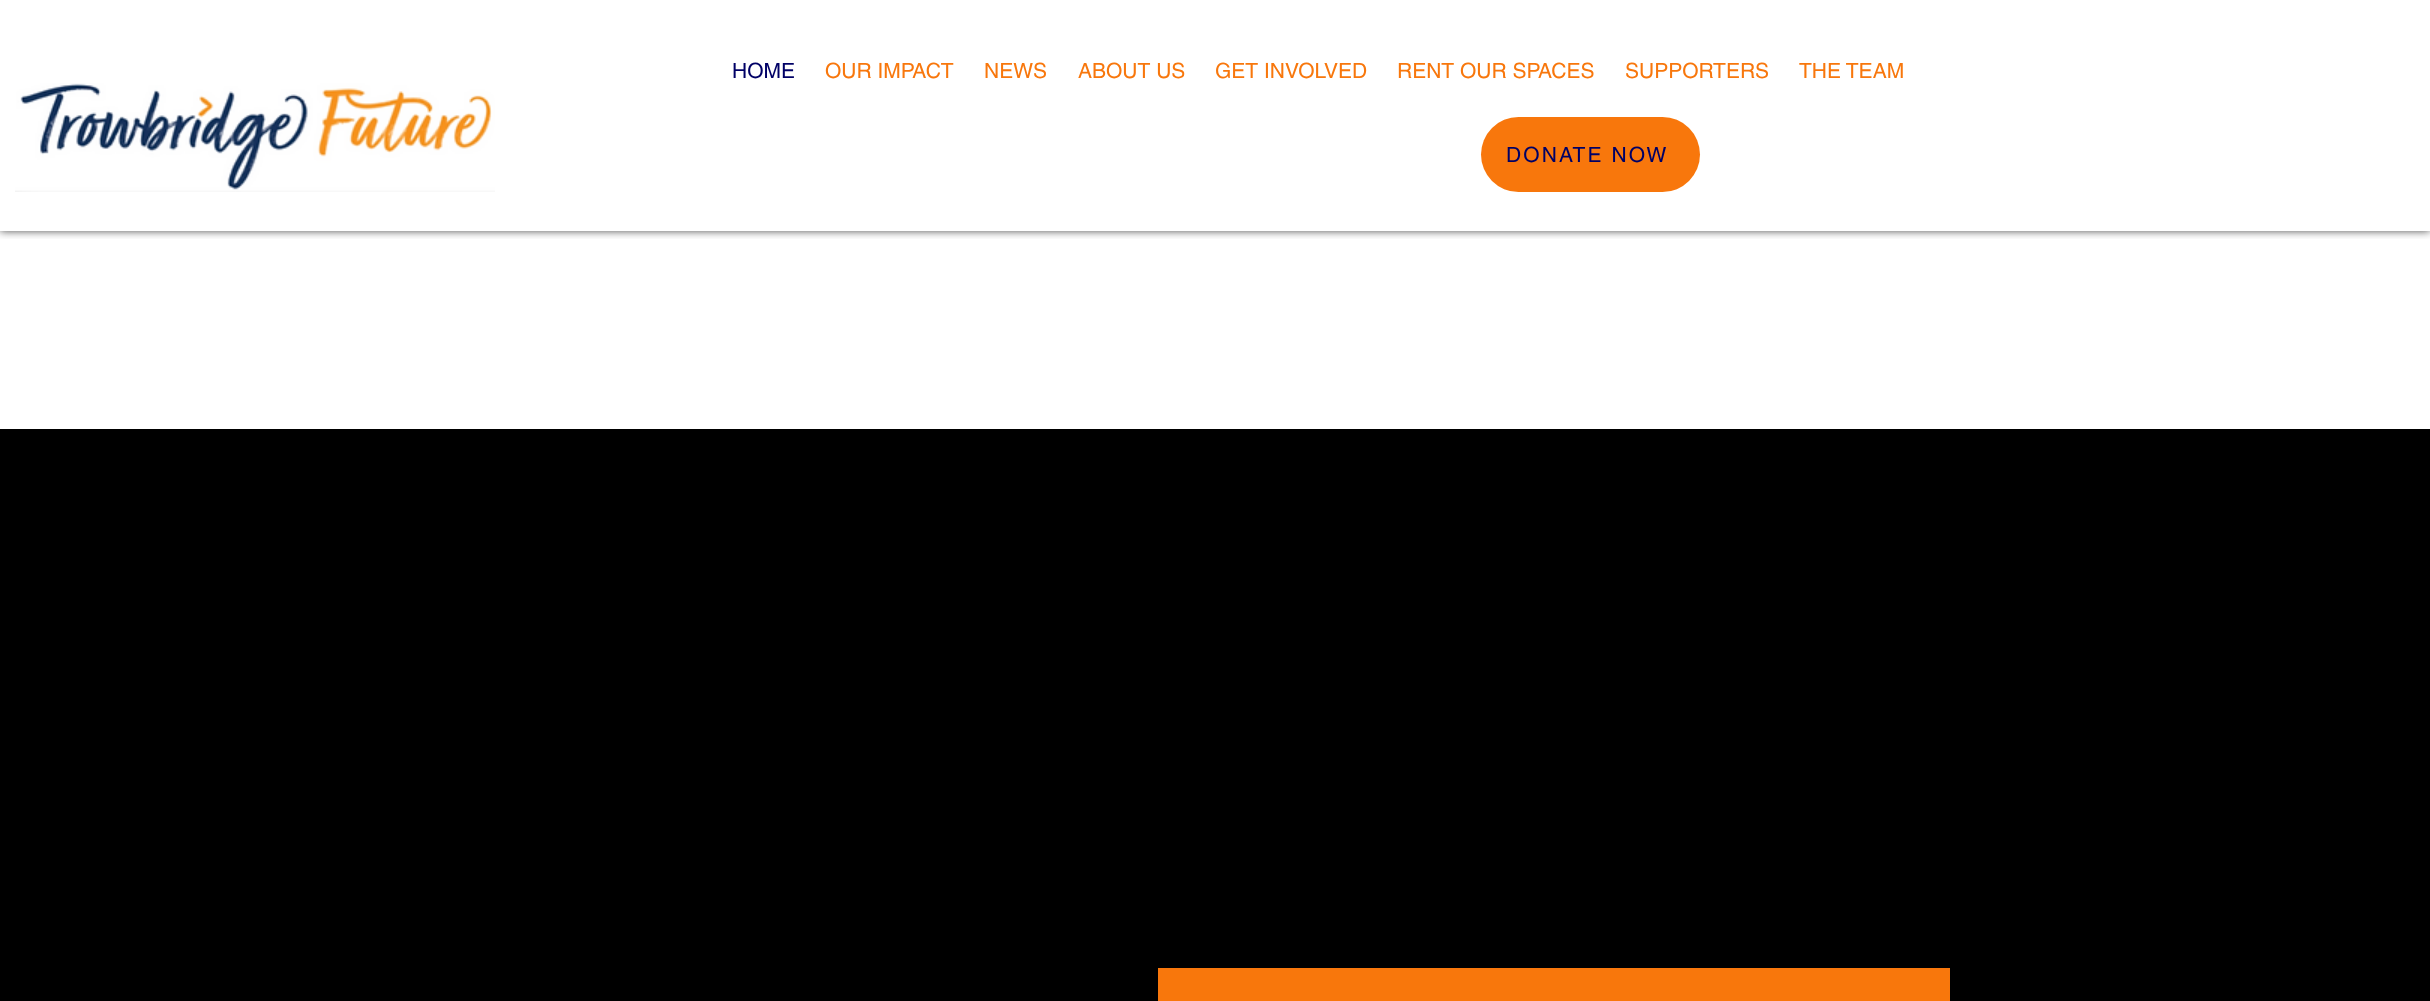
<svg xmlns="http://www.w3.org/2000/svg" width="2430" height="1001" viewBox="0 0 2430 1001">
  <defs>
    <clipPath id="clip1"><rect x="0" y="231" width="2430" height="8"/></clipPath>
    <filter id="blur1" x="-50%" y="-200%" width="200%" height="500%"><feGaussianBlur stdDeviation="4"/></filter>
  </defs>
  <rect width="100%" height="100%" fill="#ffffff"/>
  <g clip-path="url(#clip1)">
    <rect x="0" y="0" width="2430" height="231" fill="#000000" fill-opacity="0.7" filter="url(#blur1)"/>
  </g>
  <text x="732" y="78" font-family="helvetica" font-size="21" fill="#000066">HOME</text>
  <text x="825" y="78" font-family="helvetica" font-size="21" fill="#f8770c">OUR IMPACT</text>
  <text x="984" y="78" font-family="helvetica" font-size="21" fill="#f8770c">NEWS</text>
  <text x="1078" y="78" font-family="helvetica" font-size="21" fill="#f8770c">ABOUT US</text>
  <text x="1215" y="78" font-family="helvetica" font-size="21" fill="#f8770c">GET INVOLVED</text>
  <text x="1397" y="78" font-family="helvetica" font-size="21" fill="#f8770c">RENT OUR SPACES</text>
  <text x="1625" y="78" font-family="helvetica" font-size="21" fill="#f8770c">SUPPORTERS</text>
  <text x="1799" y="78" font-family="helvetica" font-size="21" fill="#f8770c">THE TEAM</text>
  <image x="15" y="83" width="480" height="109" href="img1.png"/>
  <rect x="1481" y="117" width="219" height="75" rx="37.5" fill="#f8770c"/>
  <text x="1506" y="162" font-family="helvetica" font-size="21" letter-spacing="2.1" fill="#000066">DONATE NOW</text>
  <rect x="0" y="429" width="2430" height="572" fill="#000000"/>
  <rect x="1158" y="968" width="792" height="33" fill="#f8770c"/>
</svg>
